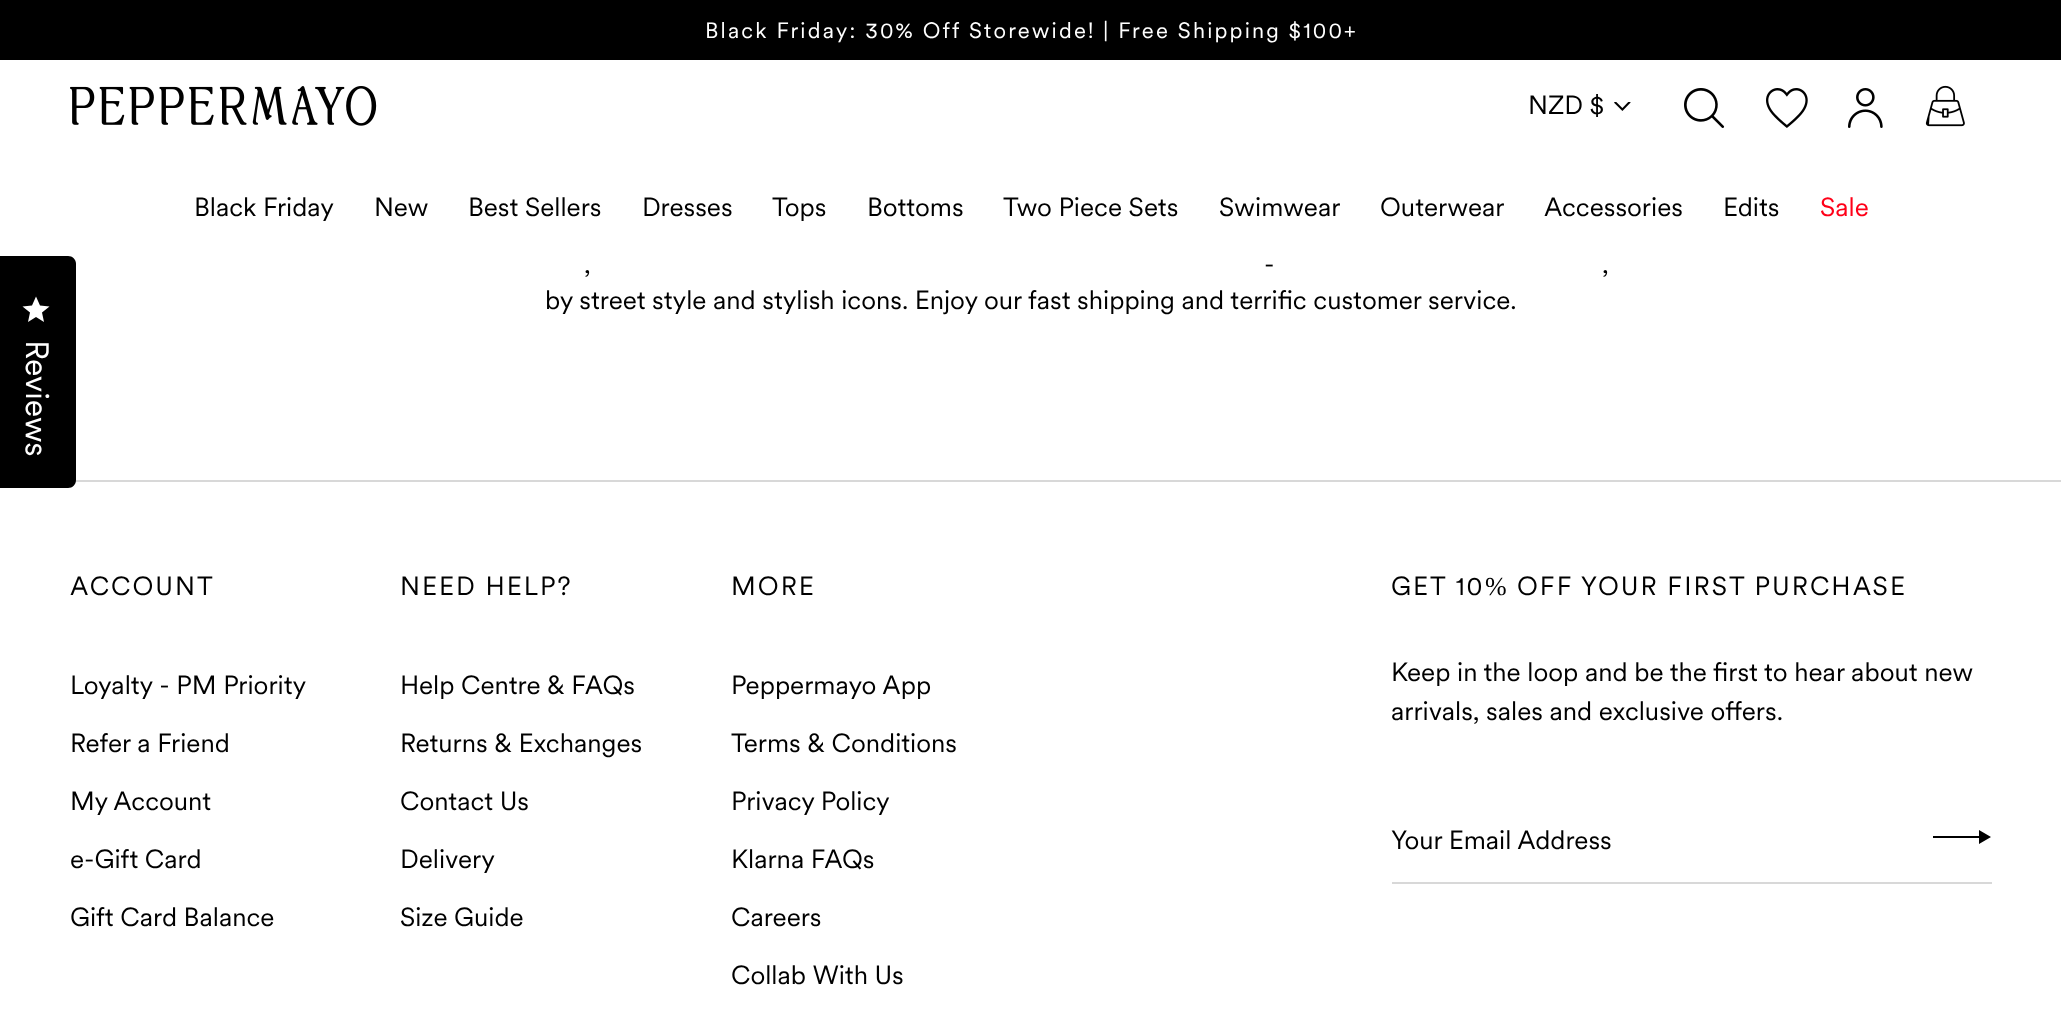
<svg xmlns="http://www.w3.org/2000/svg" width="2061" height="1026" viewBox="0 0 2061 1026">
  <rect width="100%" height="100%" fill="#ffffff"/>
  <rect x="0" y="0" width="2061" height="60" fill="#000000"/>
  <text x="705" y="38" font-family="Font" font-size="22" letter-spacing="2.18" fill="#ffffff">Black Friday: 30% Off Storewide! | Free Shipping $100+</text>
  <image x="70" y="86" width="307" height="40" href="img1.png"/>
  <text x="1528" y="114" font-family="Font" font-size="26" fill="#000000">NZD $</text>
  <image x="1614" y="102" width="17" height="9" href="img2.png"/>
  <image x="1684" y="88" width="41" height="40" href="img3.png"/>
  <image x="1766" y="88" width="42" height="40" href="img4.png"/>
  <image x="1848" y="88" width="35" height="40" href="img5.png"/>
  <image x="1925" y="85" width="40" height="42" href="img6.png"/>
  <text x="194" y="216" font-family="Font" font-size="26" fill="#000000">Black Friday</text>
  <text x="374" y="216" font-family="Font" font-size="26" fill="#000000">New</text>
  <text x="468" y="216" font-family="Font" font-size="26" fill="#000000">Best Sellers</text>
  <text x="642" y="216" font-family="Font" font-size="26" fill="#000000">Dresses</text>
  <text x="772" y="216" font-family="Font" font-size="26" fill="#000000">Tops</text>
  <text x="867" y="216" font-family="Font" font-size="26" fill="#000000">Bottoms</text>
  <text x="1003" y="216" font-family="Font" font-size="26" fill="#000000">Two Piece Sets</text>
  <text x="1219" y="216" font-family="Font" font-size="26" fill="#000000">Swimwear</text>
  <text x="1380" y="216" font-family="Font" font-size="26" fill="#000000">Outerwear</text>
  <text x="1544" y="216" font-family="Font" font-size="26" fill="#000000">Accessories</text>
  <text x="1723" y="216" font-family="Font" font-size="26" fill="#000000">Edits</text>
  <text x="1820" y="216" font-family="Font" font-size="26" fill="#ff0018">Sale</text>
  <text x="1264" y="273" font-family="Font" font-size="26" fill="#000000">-</text>
  <text x="584" y="273" font-family="Font" font-size="26" fill="#000000">,</text>
  <text x="1602" y="273" font-family="Font" font-size="26" fill="#000000">,</text>
  <text x="545" y="309" font-family="Font" font-size="26" fill="#000000">by street style and stylish icons. Enjoy our fast shipping and terrific customer service.</text>
  <rect x="75" y="480" width="1986" height="2" fill="#d8d8d8"/>
  <path d="M-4 256H68C72.5 256 76 259.5 76 264V480C76 484.5 72.5 488 68 488H-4Z" fill="#000000"/>
  <path d="M36 317L44 322L42 312.5L49.5 306.5L40 305.5L36 296.5L32 305.5L22.5 306.5L30 312.5L28 322Z" fill="#ffffff"/>
  <text x="26" y="340" transform="rotate(90.1 26 340)" font-family="Font" font-size="32" fill="#ffffff">Reviews</text>
  <text x="70" y="595" font-family="Font" font-size="26" letter-spacing="2" fill="#000000">ACCOUNT</text>
  <text x="70" y="694" font-family="Font" font-size="26" fill="#000000">Loyalty - PM Priority</text>
  <text x="70" y="752" font-family="Font" font-size="26" fill="#000000">Refer a Friend</text>
  <text x="70" y="810" font-family="Font" font-size="26" fill="#000000">My Account</text>
  <text x="70" y="868" font-family="Font" font-size="26" fill="#000000">e-Gift Card</text>
  <text x="70" y="926" font-family="Font" font-size="26" fill="#000000">Gift Card Balance</text>
  <text x="400" y="595" font-family="Font" font-size="26" letter-spacing="2" fill="#000000">NEED HELP?</text>
  <text x="400" y="694" font-family="Font" font-size="26" fill="#000000">Help Centre &amp; FAQs</text>
  <text x="400" y="752" font-family="Font" font-size="26" fill="#000000">Returns &amp; Exchanges</text>
  <text x="400" y="810" font-family="Font" font-size="26" fill="#000000">Contact Us</text>
  <text x="400" y="868" font-family="Font" font-size="26" fill="#000000">Delivery</text>
  <text x="400" y="926" font-family="Font" font-size="26" fill="#000000">Size Guide</text>
  <text x="731" y="595" font-family="Font" font-size="26" letter-spacing="2" fill="#000000">MORE</text>
  <text x="731" y="694" font-family="Font" font-size="26" fill="#000000">Peppermayo App</text>
  <text x="731" y="752" font-family="Font" font-size="26" fill="#000000">Terms &amp; Conditions</text>
  <text x="731" y="810" font-family="Font" font-size="26" fill="#000000">Privacy Policy</text>
  <text x="731" y="868" font-family="Font" font-size="26" fill="#000000">Klarna FAQs</text>
  <text x="731" y="926" font-family="Font" font-size="26" fill="#000000">Careers</text>
  <text x="731" y="984" font-family="Font" font-size="26" fill="#000000">Collab With Us</text>
  <text x="1391" y="595" font-family="Font" font-size="26" letter-spacing="2" fill="#000000">GET 10</text>
  <text x="1485" y="595" font-family="Liberation Serif" font-size="26" letter-spacing="2" fill="#000000">%</text>
  <text x="1517" y="595" font-family="Font" font-size="26" letter-spacing="2" fill="#000000">OFF YOUR FIRST PURCHASE</text>
  <text x="1391" y="681" font-family="Font" font-size="26" fill="#000000">Keep in the loop and be the first to hear about new</text>
  <text x="1391" y="720" font-family="Font" font-size="26" fill="#000000">arrivals, sales and exclusive offers.</text>
  <rect x="1392" y="882" width="600" height="2" fill="#d8d8d8"/>
  <text x="1391" y="849" font-family="Font" font-size="26" fill="#000000">Your Email Address</text>
  <path d="M1979 844L1991 837L1979 830V836H1933V838H1979Z" fill="#000000" fill-rule="evenodd"/>
</svg>
